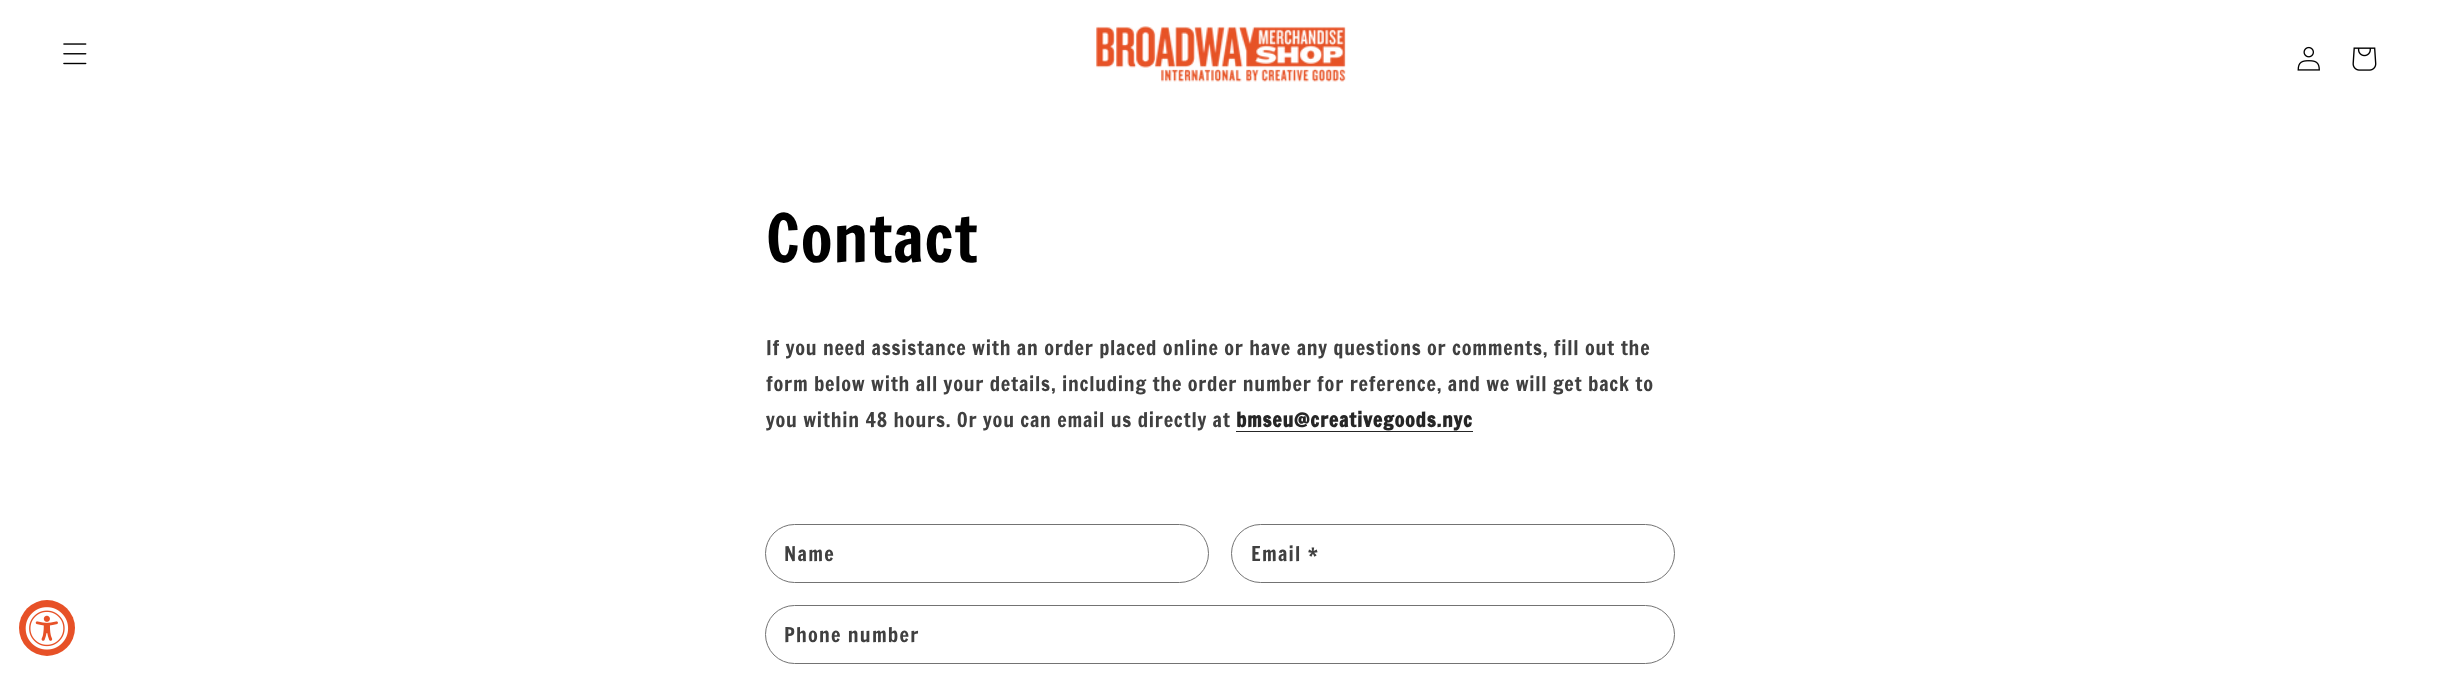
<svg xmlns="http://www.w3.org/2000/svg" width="2438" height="675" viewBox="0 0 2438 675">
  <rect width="100%" height="100%" fill="#ffffff"/>
  <image x="63" y="43" width="24" height="22" href="img1.png"/>
  <image x="1096" y="26" width="250" height="56" href="img2.png"/>
  <image x="2297" y="46" width="23" height="25" href="img3.png"/>
  <image x="2352" y="47" width="25" height="24" href="img4.png"/>
  <circle cx="47" cy="628" r="28" fill="#e75127"/>
  <image x="25" y="607" width="44" height="43" href="img5.png"/>
  <text x="766" y="262" font-family="Francois One" font-size="65" letter-spacing="0.75" fill="#000000">Contact</text>
  <text x="766" y="355" font-family="Francois One" font-size="20" letter-spacing="0.75" fill="#404040">If you need assistance with an order placed online or have any questions or comments, fill out the</text>
  <text x="766" y="391" font-family="Francois One" font-size="20" letter-spacing="0.75" fill="#404040">form below with all your details, including the order number for reference, and we will get back to</text>
  <text x="766" y="427" font-family="Francois One" font-size="20" letter-spacing="0.75" fill="#404040">you within 48 hours. Or you can email us directly at</text>
  <text x="1236" y="427" font-family="Francois One" font-size="20" font-weight="bold" letter-spacing="0.75" fill="#262626">bmseu@creativegoods.nyc</text>
  <rect x="1236" y="431" width="237" height="1" fill="#262626"/>
  <rect x="765.5" y="524.5" width="443" height="58" rx="29" fill="none" stroke="#737373"/>
  <text x="784" y="561" font-family="Francois One" font-size="20" letter-spacing="1.25" fill="#404040">Name</text>
  <rect x="1231.5" y="524.5" width="443" height="58" rx="29" fill="none" stroke="#737373"/>
  <text x="1251" y="561" font-family="Francois One" font-size="20" letter-spacing="1.25" fill="#404040">Email *</text>
  <rect x="765.5" y="605.5" width="909" height="58" rx="29" fill="none" stroke="#737373"/>
  <text x="784" y="642" font-family="Francois One" font-size="20" letter-spacing="1.25" fill="#404040">Phone number</text>
</svg>
